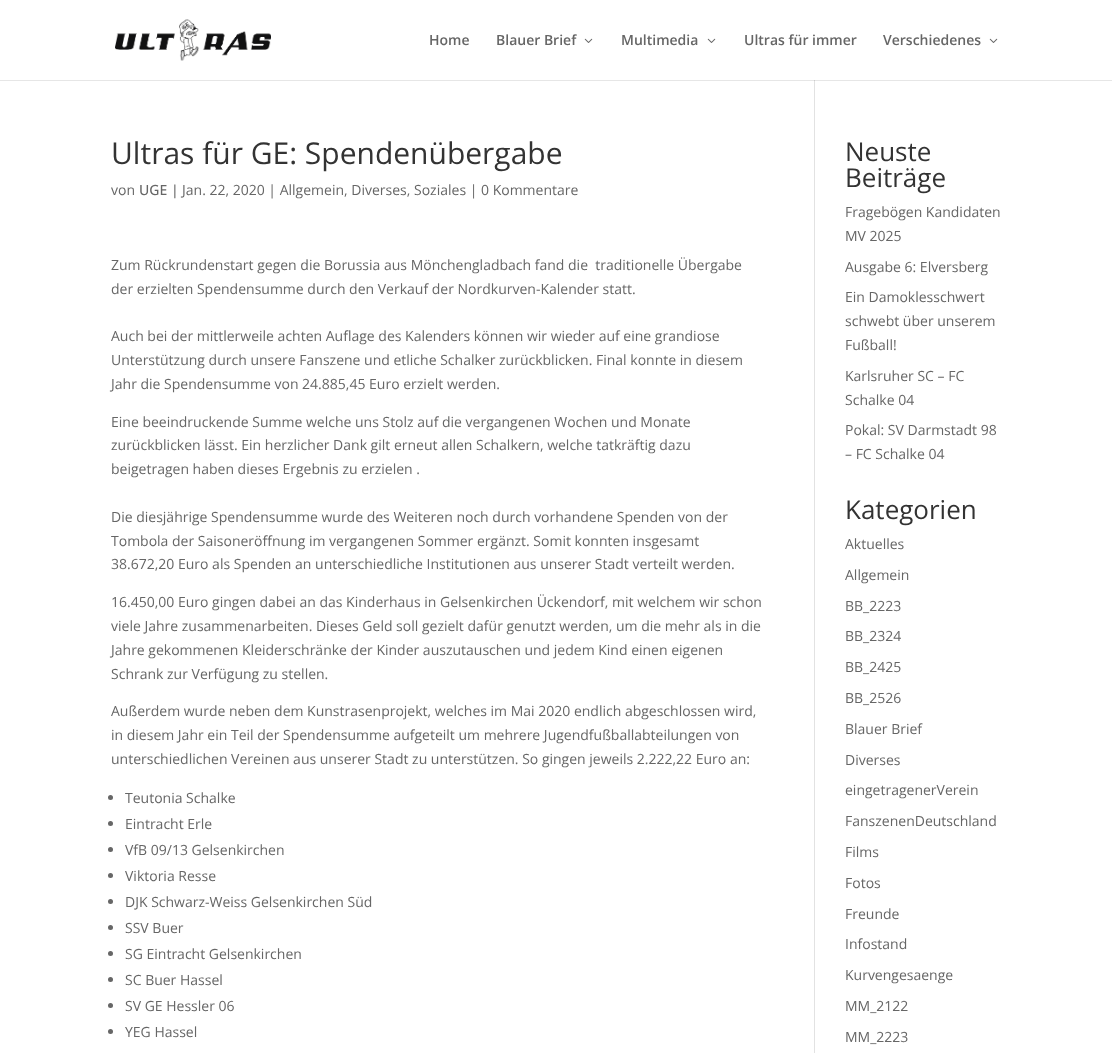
<svg xmlns="http://www.w3.org/2000/svg" width="1112" height="1053" viewBox="0 0 1112 1053">
  <rect width="100%" height="100%" fill="#ffffff"/>
  <rect x="0" y="80" width="1112" height="1" fill="#e6e6e6"/>
  <image x="115" y="19" width="156" height="42" href="img1.png"/>
  <text x="429" y="45" font-family="Open Sans" font-size="14" font-weight="600" fill="#666666">Home</text>
  <text x="496" y="45" font-family="Open Sans" font-size="14" font-weight="600" fill="#666666">Blauer Brief</text>
  <image x="584" y="38" width="9" height="5" href="img2.png"/>
  <text x="621" y="45" font-family="Open Sans" font-size="14" font-weight="600" fill="#666666">Multimedia</text>
  <image x="707" y="38" width="9" height="5" href="img2.png"/>
  <text x="744" y="45" font-family="Open Sans" font-size="14" font-weight="600" fill="#666666">Ultras für immer</text>
  <text x="883" y="45" font-family="Open Sans" font-size="14" font-weight="600" fill="#666666">Verschiedenes</text>
  <image x="989" y="38" width="9" height="5" href="img2.png"/>
  <rect x="814" y="80" width="1" height="973" fill="#e2e2e2"/>
  <rect x="814" y="80" width="1" height="1" fill="#cbcbcb"/>
  <text x="111" y="164" font-family="Open Sans" font-size="30" fill="#333333">Ultras für GE: Spendenübergabe</text>
  <text x="111" y="195" font-family="Open Sans" font-size="14" fill="#666666">von</text>
  <text x="139" y="195" font-family="Open Sans" font-size="14" font-weight="500" fill="#666666">UGE |</text>
  <text x="182" y="195" font-family="Open Sans" font-size="14" fill="#666666">Jan. 22, 2020 | Allgemein, Diverses, Soziales | 0 Kommentare</text>
  <text x="111" y="270" font-family="Open Sans" font-size="14" fill="#666666" xml:space="preserve">Zum Rückrundenstart gegen die Borussia aus Mönchengladbach fand die  traditionelle Übergabe</text>
  <text x="111" y="294" font-family="Open Sans" font-size="14" fill="#666666">der erzielten Spendensumme durch den Verkauf der Nordkurven-Kalender statt.</text>
  <text x="111" y="341" font-family="Open Sans" font-size="14" fill="#666666">Auch bei der mittlerweile achten Auflage des Kalenders können wir wieder auf eine grandiose</text>
  <text x="111" y="365" font-family="Open Sans" font-size="14" fill="#666666">Unterstützung durch unsere Fanszene und etliche Schalker zurückblicken. Final konnte in diesem</text>
  <text x="111" y="389" font-family="Open Sans" font-size="14" fill="#666666">Jahr die Spendensumme von 24.885,45 Euro erzielt werden.</text>
  <text x="111" y="427" font-family="Open Sans" font-size="14" fill="#666666">Eine beeindruckende Summe welche uns Stolz auf die vergangenen Wochen und Monate</text>
  <text x="111" y="450" font-family="Open Sans" font-size="14" fill="#666666">zurückblicken lässt. Ein herzlicher Dank gilt erneut allen Schalkern, welche tatkräftig dazu</text>
  <text x="111" y="474" font-family="Open Sans" font-size="14" fill="#666666">beigetragen haben dieses Ergebnis zu erzielen .</text>
  <text x="111" y="522" font-family="Open Sans" font-size="14" fill="#666666">Die diesjährige Spendensumme wurde des Weiteren noch durch vorhandene Spenden von der</text>
  <text x="111" y="546" font-family="Open Sans" font-size="14" fill="#666666">Tombola der Saisoneröffnung im vergangenen Sommer ergänzt. Somit konnten insgesamt</text>
  <text x="111" y="569" font-family="Open Sans" font-size="14" fill="#666666">38.672,20 Euro als Spenden an unterschiedliche Institutionen aus unserer Stadt verteilt werden.</text>
  <text x="111" y="607" font-family="Open Sans" font-size="14" fill="#666666">16.450,00 Euro gingen dabei an das Kinderhaus in Gelsenkirchen Ückendorf, mit welchem wir schon</text>
  <text x="111" y="631" font-family="Open Sans" font-size="14" fill="#666666">viele Jahre zusammenarbeiten. Dieses Geld soll gezielt dafür genutzt werden, um die mehr als in die</text>
  <text x="111" y="655" font-family="Open Sans" font-size="14" fill="#666666">Jahre gekommenen Kleiderschränke der Kinder auszutauschen und jedem Kind einen eigenen</text>
  <text x="111" y="679" font-family="Open Sans" font-size="14" fill="#666666">Schrank zur Verfügung zu stellen.</text>
  <text x="111" y="716" font-family="Open Sans" font-size="14" fill="#666666">Außerdem wurde neben dem Kunstrasenprojekt, welches im Mai 2020 endlich abgeschlossen wird,</text>
  <text x="111" y="740" font-family="Open Sans" font-size="14" fill="#666666">in diesem Jahr ein Teil der Spendensumme aufgeteilt um mehrere Jugendfußballabteilungen von</text>
  <text x="111" y="764" font-family="Open Sans" font-size="14" fill="#666666">unterschiedlichen Vereinen aus unserer Stadt zu unterstützen. So gingen jeweils 2.222,22 Euro an:</text>
  <circle cx="110.5" cy="797.5" r="2.5" fill="#666666"/>
  <text x="125" y="803" font-family="Open Sans" font-size="14" fill="#666666">Teutonia Schalke</text>
  <circle cx="110.5" cy="823.5" r="2.5" fill="#666666"/>
  <text x="125" y="829" font-family="Open Sans" font-size="14" fill="#666666">Eintracht Erle</text>
  <circle cx="110.5" cy="849.5" r="2.5" fill="#666666"/>
  <text x="125" y="855" font-family="Open Sans" font-size="14" fill="#666666">VfB 09/13 Gelsenkirchen</text>
  <circle cx="110.5" cy="875.5" r="2.5" fill="#666666"/>
  <text x="125" y="881" font-family="Open Sans" font-size="14" fill="#666666">Viktoria Resse</text>
  <circle cx="110.5" cy="901.5" r="2.5" fill="#666666"/>
  <text x="125" y="907" font-family="Open Sans" font-size="14" fill="#666666">DJK Schwarz-Weiss Gelsenkirchen Süd</text>
  <circle cx="110.5" cy="927.5" r="2.5" fill="#666666"/>
  <text x="125" y="933" font-family="Open Sans" font-size="14" fill="#666666">SSV Buer</text>
  <circle cx="110.5" cy="953.5" r="2.5" fill="#666666"/>
  <text x="125" y="959" font-family="Open Sans" font-size="14" fill="#666666">SG Eintracht Gelsenkirchen</text>
  <circle cx="110.5" cy="979.5" r="2.5" fill="#666666"/>
  <text x="125" y="985" font-family="Open Sans" font-size="14" fill="#666666">SC Buer Hassel</text>
  <circle cx="110.5" cy="1005.5" r="2.5" fill="#666666"/>
  <text x="125" y="1011" font-family="Open Sans" font-size="14" fill="#666666">SV GE Hessler 06</text>
  <circle cx="110.5" cy="1031.5" r="2.5" fill="#666666"/>
  <text x="125" y="1037" font-family="Open Sans" font-size="14" fill="#666666">YEG Hassel</text>
  <text x="845" y="161" font-family="Open Sans" font-size="26" fill="#333333">Neuste</text>
  <text x="845" y="187" font-family="Open Sans" font-size="26" fill="#333333">Beiträge</text>
  <text x="845" y="217" font-family="Open Sans" font-size="14" fill="#666666">Fragebögen Kandidaten</text>
  <text x="845" y="241" font-family="Open Sans" font-size="14" fill="#666666">MV 2025</text>
  <text x="845" y="272" font-family="Open Sans" font-size="14" fill="#666666">Ausgabe 6: Elversberg</text>
  <text x="845" y="302" font-family="Open Sans" font-size="14" fill="#666666">Ein Damoklesschwert</text>
  <text x="845" y="326" font-family="Open Sans" font-size="14" fill="#666666">schwebt über unserem</text>
  <text x="845" y="350" font-family="Open Sans" font-size="14" fill="#666666">Fußball!</text>
  <text x="845" y="381" font-family="Open Sans" font-size="14" fill="#666666">Karlsruher SC – FC</text>
  <text x="845" y="405" font-family="Open Sans" font-size="14" fill="#666666">Schalke 04</text>
  <text x="845" y="435" font-family="Open Sans" font-size="14" fill="#666666">Pokal: SV Darmstadt 98</text>
  <text x="845" y="459" font-family="Open Sans" font-size="14" fill="#666666">– FC Schalke 04</text>
  <text x="845" y="519" font-family="Open Sans" font-size="26" fill="#333333">Kategorien</text>
  <text x="845" y="549" font-family="Open Sans" font-size="14" fill="#666666">Aktuelles</text>
  <text x="845" y="580" font-family="Open Sans" font-size="14" fill="#666666">Allgemein</text>
  <text x="845" y="611" font-family="Open Sans" font-size="14" fill="#666666">BB_2223</text>
  <text x="845" y="641" font-family="Open Sans" font-size="14" fill="#666666">BB_2324</text>
  <text x="845" y="672" font-family="Open Sans" font-size="14" fill="#666666">BB_2425</text>
  <text x="845" y="703" font-family="Open Sans" font-size="14" fill="#666666">BB_2526</text>
  <text x="845" y="734" font-family="Open Sans" font-size="14" fill="#666666">Blauer Brief</text>
  <text x="845" y="765" font-family="Open Sans" font-size="14" fill="#666666">Diverses</text>
  <text x="845" y="795" font-family="Open Sans" font-size="14" fill="#666666">eingetragenerVerein</text>
  <text x="845" y="826" font-family="Open Sans" font-size="14" fill="#666666">FanszenenDeutschland</text>
  <text x="845" y="857" font-family="Open Sans" font-size="14" fill="#666666">Films</text>
  <text x="845" y="888" font-family="Open Sans" font-size="14" fill="#666666">Fotos</text>
  <text x="845" y="919" font-family="Open Sans" font-size="14" fill="#666666">Freunde</text>
  <text x="845" y="949" font-family="Open Sans" font-size="14" fill="#666666">Infostand</text>
  <text x="845" y="980" font-family="Open Sans" font-size="14" fill="#666666">Kurvengesaenge</text>
  <text x="845" y="1011" font-family="Open Sans" font-size="14" fill="#666666">MM_2122</text>
  <text x="845" y="1042" font-family="Open Sans" font-size="14" fill="#666666">MM_2223</text>
</svg>
